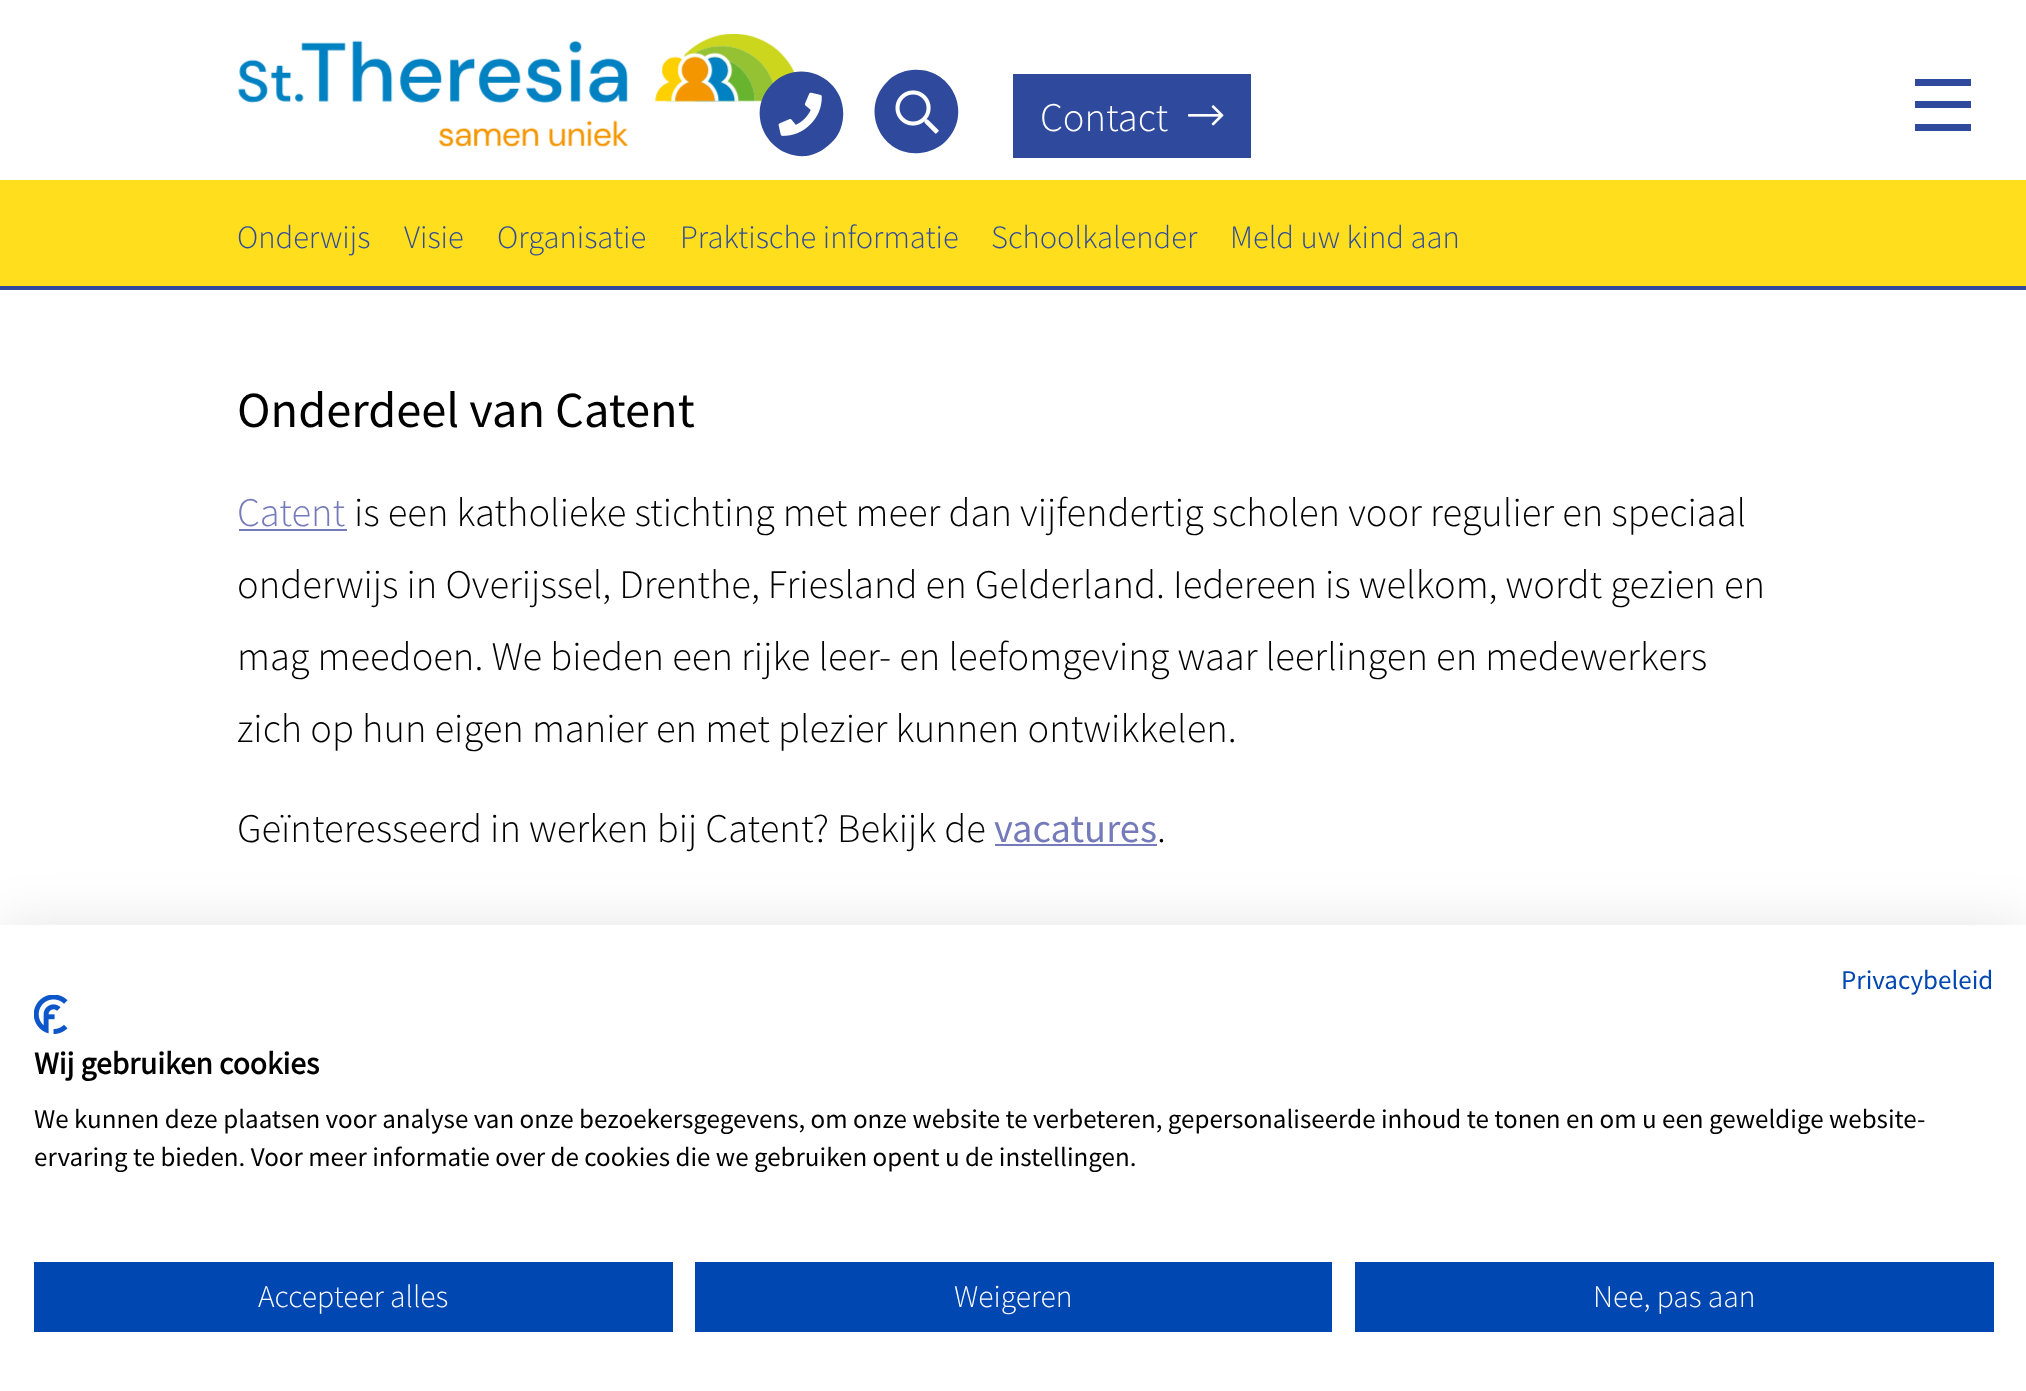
<svg xmlns="http://www.w3.org/2000/svg" width="2026" height="1391" viewBox="0 0 2026 1391">
  <defs>
    <filter id="blur1" x="-50%" y="-200%" width="200%" height="500%"><feGaussianBlur stdDeviation="27"/></filter>
  </defs>
  <rect width="100%" height="100%" fill="#ffffff"/>
  <image x="238" y="34" width="558" height="113" href="img1.png"/>
  <path d="M772 84C800 56 847 79 843 118C842 128 838 137 831 143C824 150 815 155 806 156C767 159 744 112 772 84Z" fill="#2f4a9c"/>
  <image x="778" y="92" width="44" height="44" href="img2.png"/>
  <path d="M887 82C893 75 902 71 912 70C951 66 974 113 946 141C939 148 930 152 920 153C882 157 859 110 887 82Z" fill="#2f4a9c"/>
  <image x="895" y="90" width="44" height="44" href="img3.png"/>
  <rect x="1013" y="74" width="238" height="84" fill="#2f4a9c"/>
  <text x="1040" y="131" font-family="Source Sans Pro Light" font-size="40.5" font-weight="300" fill="#ffffff">Contact</text>
  <image x="1188" y="105" width="36" height="21" href="img4.png"/>
  <rect x="1915" y="101" width="56" height="7" fill="#2f4a9c"/>
  <rect x="1915" y="79" width="56" height="7" fill="#2f4a9c"/>
  <rect x="1915" y="124" width="56" height="7" fill="#2f4a9c"/>
  <rect x="0" y="180" width="2026" height="106" fill="#ffde1d"/>
  <text x="237" y="248" font-family="Source Sans Pro Light" font-size="32.5" font-weight="300" fill="#2f4a9c">Onderwijs</text>
  <text x="404" y="248" font-family="Source Sans Pro Light" font-size="32.5" font-weight="300" fill="#2f4a9c">Visie</text>
  <text x="497" y="248" font-family="Source Sans Pro Light" font-size="32.5" font-weight="300" fill="#2f4a9c">Organisatie</text>
  <text x="680" y="248" font-family="Source Sans Pro Light" font-size="32.5" font-weight="300" fill="#2f4a9c">Praktische informatie</text>
  <text x="991" y="248" font-family="Source Sans Pro Light" font-size="32.5" font-weight="300" fill="#2f4a9c">Schoolkalender</text>
  <text x="1230" y="248" font-family="Source Sans Pro Light" font-size="32.5" font-weight="300" fill="#2f4a9c">Meld uw kind aan</text>
  <rect x="0" y="286" width="2026" height="4" fill="#2f4a9c"/>
  <text x="237" y="427" font-family="Source Sans Pro" font-size="50.5" fill="#000000">Onderdeel van Catent</text>
  <text x="237" y="526" font-family="Source Sans Pro Light" font-size="40.5" font-weight="300" fill="#757bba">Catent</text>
  <rect x="239" y="529" width="108" height="2" fill="#757bba"/>
  <text x="354" y="526" font-family="Source Sans Pro Light" font-size="40.5" font-weight="300" fill="#000000">is een katholieke stichting met meer dan vijfendertig scholen voor regulier en speciaal</text>
  <text x="237" y="598" font-family="Source Sans Pro Light" font-size="40.5" font-weight="300" fill="#000000">onderwijs in Overijssel, Drenthe, Friesland en Gelderland. Iedereen is welkom, wordt gezien en</text>
  <text x="237" y="670" font-family="Source Sans Pro Light" font-size="40.5" font-weight="300" fill="#000000">mag meedoen. We bieden een rijke leer- en leefomgeving waar leerlingen en medewerkers</text>
  <text x="237" y="742" font-family="Source Sans Pro Light" font-size="40.5" font-weight="300" fill="#000000">zich op hun eigen manier en met plezier kunnen ontwikkelen.</text>
  <text x="237" y="842" font-family="Source Sans Pro Light" font-size="40.5" font-weight="300" fill="#000000">Geïnteresseerd in werken bij Catent? Bekijk de</text>
  <text x="994" y="842" font-family="Source Sans Pro" font-size="40.5" fill="#757bba">vacatures</text>
  <rect x="995" y="844" width="162" height="2" fill="#757bba"/>
  <text x="1157" y="842" font-family="Source Sans Pro Light" font-size="40.5" font-weight="300" fill="#000000">.</text>
  <rect x="0" y="925" width="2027" height="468" fill="#000000" fill-opacity="0.1" filter="url(#blur1)"/>
  <rect x="0" y="925" width="2026" height="466" fill="#ffffff"/>
  <text x="1841" y="989" font-family="Source Sans Pro" font-size="27" fill="#0047b2">Privacybeleid</text>
  <image x="34" y="995" width="34" height="39" href="img5.png"/>
  <text x="34" y="1074" font-family="Source Sans Pro" font-size="31.5" font-weight="bold" fill="#000000">Wij gebruiken cookies</text>
  <text x="34" y="1128" font-family="Source Sans Pro" font-size="27" fill="#000000">We kunnen deze plaatsen voor analyse van onze bezoekersgegevens, om onze website te verbeteren, gepersonaliseerde inhoud te tonen en om u een geweldige website-</text>
  <text x="34" y="1166" font-family="Source Sans Pro" font-size="27" fill="#000000">ervaring te bieden. Voor meer informatie over de cookies die we gebruiken opent u de instellingen.</text>
  <rect x="34" y="1262" width="639" height="70" fill="#0047b2"/>
  <text x="258" y="1307" font-family="Source Sans Pro Light" font-size="31.5" font-weight="300" fill="#ffffff">Accepteer alles</text>
  <rect x="695" y="1262" width="637" height="70" fill="#0047b2"/>
  <text x="954" y="1307" font-family="Source Sans Pro Light" font-size="31.5" font-weight="300" fill="#ffffff">Weigeren</text>
  <rect x="1355" y="1262" width="639" height="70" fill="#0047b2"/>
  <text x="1593" y="1307" font-family="Source Sans Pro Light" font-size="31.5" font-weight="300" fill="#ffffff">Nee, pas aan</text>
</svg>
